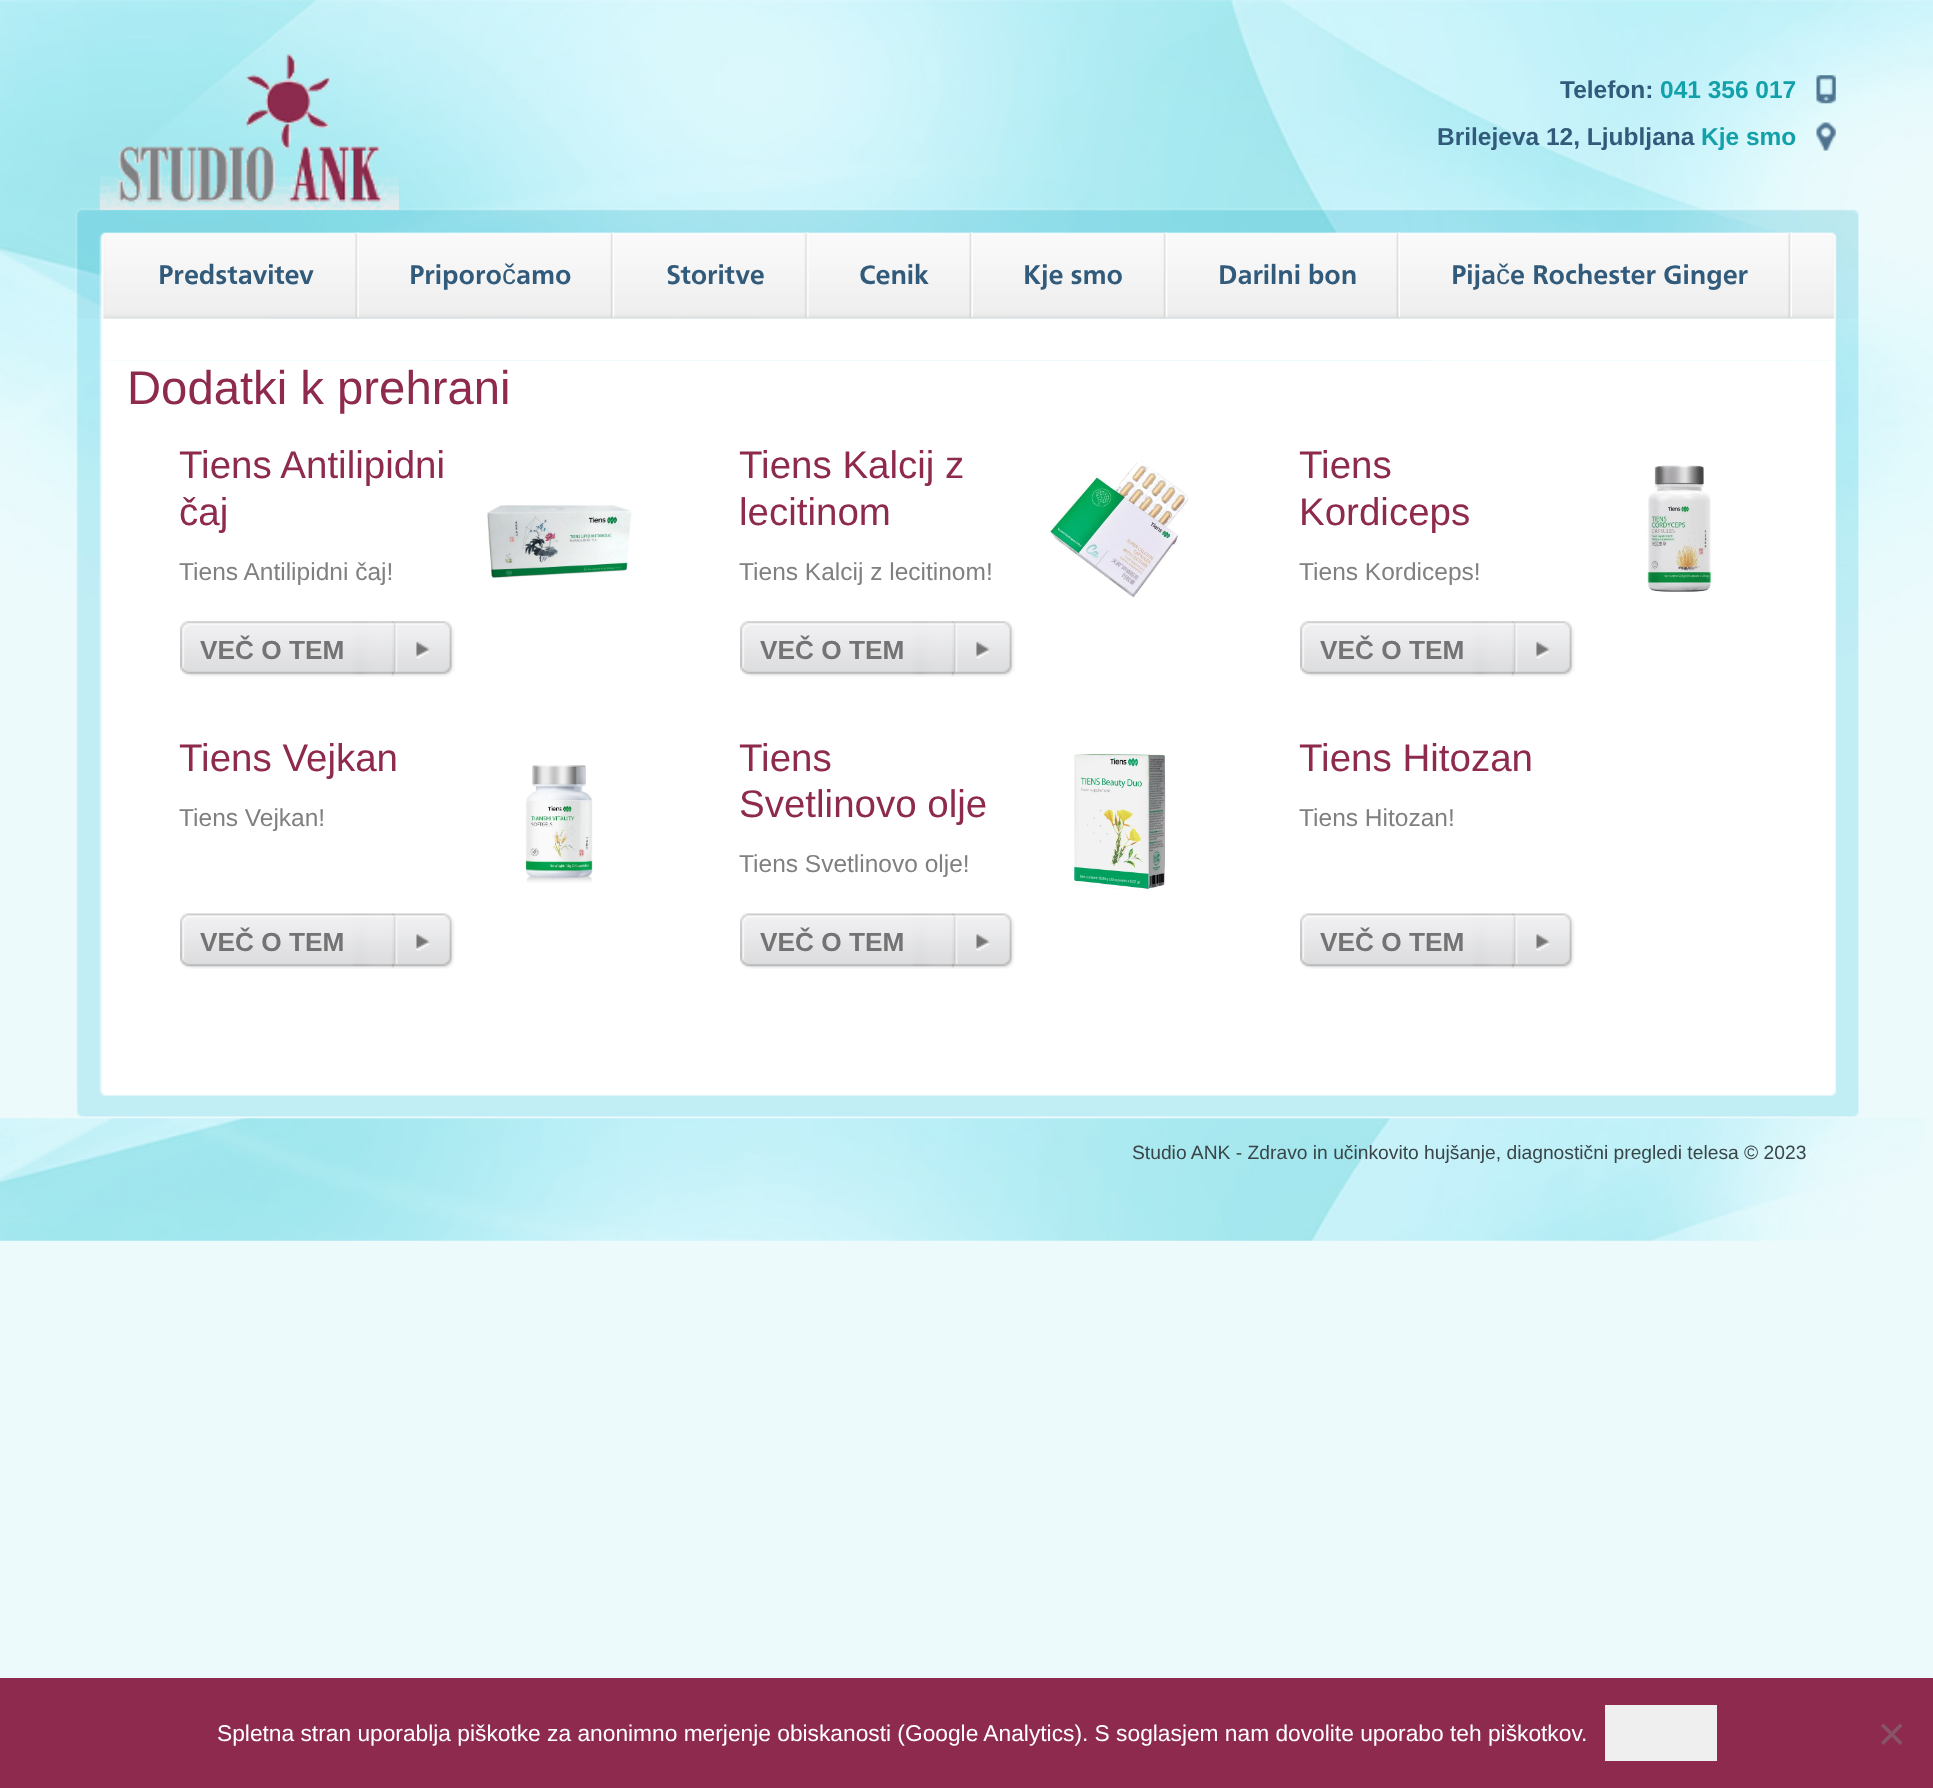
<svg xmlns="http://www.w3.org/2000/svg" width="1933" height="1788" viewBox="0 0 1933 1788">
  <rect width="100%" height="100%" fill="#ecfafc"/>
  <image x="0" y="0" width="1933" height="655" href="img1.png"/>
  <image x="99" y="54" width="300" height="156" href="img2.png"/>
  <text x="1560" y="98" font-family="Liberation Sans" font-size="24.5" font-weight="bold" fill="#325b7b">Telefon:</text>
  <text x="1660" y="98" font-family="Liberation Sans" font-size="24.5" font-weight="bold" fill="#12a0a9">041 356 017</text>
  <image x="1816" y="75" width="20" height="29" href="img3.png"/>
  <text x="1437" y="145" font-family="Liberation Sans" font-size="24.5" font-weight="bold" fill="#325b7b">Brilejeva 12, Ljubljana</text>
  <text x="1701" y="145" font-family="Liberation Sans" font-size="24.5" font-weight="bold" fill="#12a0a9">Kje smo</text>
  <image x="1816" y="122" width="20" height="29" href="img4.png"/>
  <image x="75" y="360" width="1785" height="729" href="img14.png"/>
  <image x="75" y="318" width="1785" height="43" href="img13.png"/>
  <image x="75" y="208" width="1785" height="111" href="img5.png"/>
  <image x="355" y="232" width="4" height="87" href="img6.png"/>
  <text x="158" y="284" font-family="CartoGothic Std" font-size="28" font-weight="bold" fill="#325b7b">Predstavitev</text>
  <image x="610" y="232" width="5" height="87" href="img7.png"/>
  <text x="409" y="284" font-family="CartoGothic Std" font-size="28" font-weight="bold" fill="#325b7b">Priporo</text>
  <text x="502" y="284" font-family="Liberation Sans" font-size="28" fill="#325b7b">č</text>
  <text x="516" y="284" font-family="CartoGothic Std" font-size="28" font-weight="bold" fill="#325b7b">amo</text>
  <image x="804" y="232" width="5" height="87" href="img8.png"/>
  <text x="666" y="284" font-family="CartoGothic Std" font-size="28" font-weight="bold" fill="#325b7b">Storitve</text>
  <image x="969" y="232" width="4" height="87" href="img9.png"/>
  <text x="859" y="284" font-family="CartoGothic Std" font-size="28" font-weight="bold" fill="#325b7b">Cenik</text>
  <image x="1163" y="232" width="5" height="87" href="img10.png"/>
  <text x="1023" y="284" font-family="CartoGothic Std" font-size="28" font-weight="bold" fill="#325b7b">Kje smo</text>
  <image x="1396" y="232" width="4" height="87" href="img11.png"/>
  <text x="1218" y="284" font-family="CartoGothic Std" font-size="28" font-weight="bold" fill="#325b7b">Darilni bon</text>
  <image x="1788" y="232" width="4" height="87" href="img12.png"/>
  <text x="1451" y="284" font-family="CartoGothic Std" font-size="28" font-weight="bold" fill="#325b7b">Pija</text>
  <text x="1496" y="284" font-family="Liberation Sans" font-size="28" fill="#325b7b">č</text>
  <text x="1510" y="284" font-family="CartoGothic Std" font-size="28" font-weight="bold" fill="#325b7b">e Rochester Ginger</text>
  <text x="127" y="404" font-family="Liberation Sans" font-size="47.25" fill="#8e2a4e">Dodatki k prehrani</text>
  <text x="179" y="478" font-family="Liberation Sans" font-size="38.5" fill="#8e2a4e">Tiens Antilipidni</text>
  <text x="179" y="525" font-family="Liberation Sans" font-size="38.5" fill="#8e2a4e">čaj</text>
  <image x="487" y="505" width="145" height="73" href="img15.png"/>
  <text x="179" y="580" font-family="Liberation Sans" font-size="24.5" fill="#808080">Tiens Antilipidni čaj!</text>
  <image x="391" y="621" width="64" height="56" href="img16.png"/>
  <image x="180" y="621" width="214" height="56" href="img17.png"/>
  <text x="200" y="659" font-family="Liberation Sans" font-size="26.25" font-weight="bold" fill="#737373">VEČ O TEM</text>
  <text x="739" y="478" font-family="Liberation Sans" font-size="38.5" fill="#8e2a4e">Tiens Kalcij z</text>
  <text x="739" y="525" font-family="Liberation Sans" font-size="38.5" fill="#8e2a4e">lecitinom</text>
  <image x="1050" y="461" width="139" height="137" href="img18.png"/>
  <text x="739" y="580" font-family="Liberation Sans" font-size="24.5" fill="#808080">Tiens Kalcij z lecitinom!</text>
  <image x="951" y="621" width="64" height="56" href="img16.png"/>
  <image x="740" y="621" width="214" height="56" href="img17.png"/>
  <text x="760" y="659" font-family="Liberation Sans" font-size="26.25" font-weight="bold" fill="#737373">VEČ O TEM</text>
  <text x="1299" y="478" font-family="Liberation Sans" font-size="38.5" fill="#8e2a4e">Tiens</text>
  <text x="1299" y="525" font-family="Liberation Sans" font-size="38.5" fill="#8e2a4e">Kordiceps</text>
  <image x="1647" y="465" width="67" height="128" href="img19.png"/>
  <text x="1299" y="580" font-family="Liberation Sans" font-size="24.5" fill="#808080">Tiens Kordiceps!</text>
  <image x="1511" y="621" width="64" height="56" href="img16.png"/>
  <image x="1300" y="621" width="214" height="56" href="img17.png"/>
  <text x="1320" y="659" font-family="Liberation Sans" font-size="26.25" font-weight="bold" fill="#737373">VEČ O TEM</text>
  <text x="179" y="771" font-family="Liberation Sans" font-size="38.5" fill="#8e2a4e">Tiens Vejkan</text>
  <text x="179" y="826" font-family="Liberation Sans" font-size="24.5" fill="#808080">Tiens Vejkan!</text>
  <image x="391" y="913" width="64" height="56" href="img20.png"/>
  <image x="180" y="913" width="214" height="56" href="img21.png"/>
  <text x="200" y="951" font-family="Liberation Sans" font-size="26.25" font-weight="bold" fill="#737373">VEČ O TEM</text>
  <image x="525" y="765" width="68" height="118" href="img22.png"/>
  <text x="739" y="771" font-family="Liberation Sans" font-size="38.5" fill="#8e2a4e">Tiens</text>
  <text x="739" y="817" font-family="Liberation Sans" font-size="38.5" fill="#8e2a4e">Svetlinovo olje</text>
  <image x="1074" y="753" width="92" height="137" href="img23.png"/>
  <text x="739" y="872" font-family="Liberation Sans" font-size="24.5" fill="#808080">Tiens Svetlinovo olje!</text>
  <image x="951" y="913" width="64" height="56" href="img20.png"/>
  <image x="740" y="913" width="214" height="56" href="img21.png"/>
  <text x="760" y="951" font-family="Liberation Sans" font-size="26.25" font-weight="bold" fill="#737373">VEČ O TEM</text>
  <text x="1299" y="771" font-family="Liberation Sans" font-size="38.5" fill="#8e2a4e">Tiens Hitozan</text>
  <text x="1299" y="826" font-family="Liberation Sans" font-size="24.5" fill="#808080">Tiens Hitozan!</text>
  <image x="1511" y="913" width="64" height="56" href="img20.png"/>
  <image x="1300" y="913" width="214" height="56" href="img21.png"/>
  <text x="1320" y="951" font-family="Liberation Sans" font-size="26.25" font-weight="bold" fill="#737373">VEČ O TEM</text>
  <image x="76" y="1088" width="1783" height="29" href="img24.png"/>
  <image x="0" y="1118" width="1926" height="123" href="img25.png"/>
  <text x="1132" y="1159" font-family="Liberation Sans" font-size="19.25" fill="#394547">Studio ANK - Zdravo in učinkovito hujšanje, diagnostični pregledi telesa © 2023</text>
  <rect x="0" y="1678" width="1933" height="110" fill="#8e2a4e"/>
  <text x="217" y="1741" font-family="Liberation Sans" font-size="22.75" fill="#ffffff">Spletna stran uporablja piškotke za anonimno merjenje obiskanosti (Google Analytics). S soglasjem nam dovolite uporabo teh piškotkov.</text>
  <rect x="1605" y="1705" width="112" height="56" fill="#efefef"/>
  <path d="M1900 1723.5L1902.5 1726L1883.5 1745L1881 1742.5Z" fill="#875567"/>
  <path d="M1881 1726L1883.5 1723.5L1902.5 1742.5L1900 1745Z" fill="#875567"/>
</svg>
